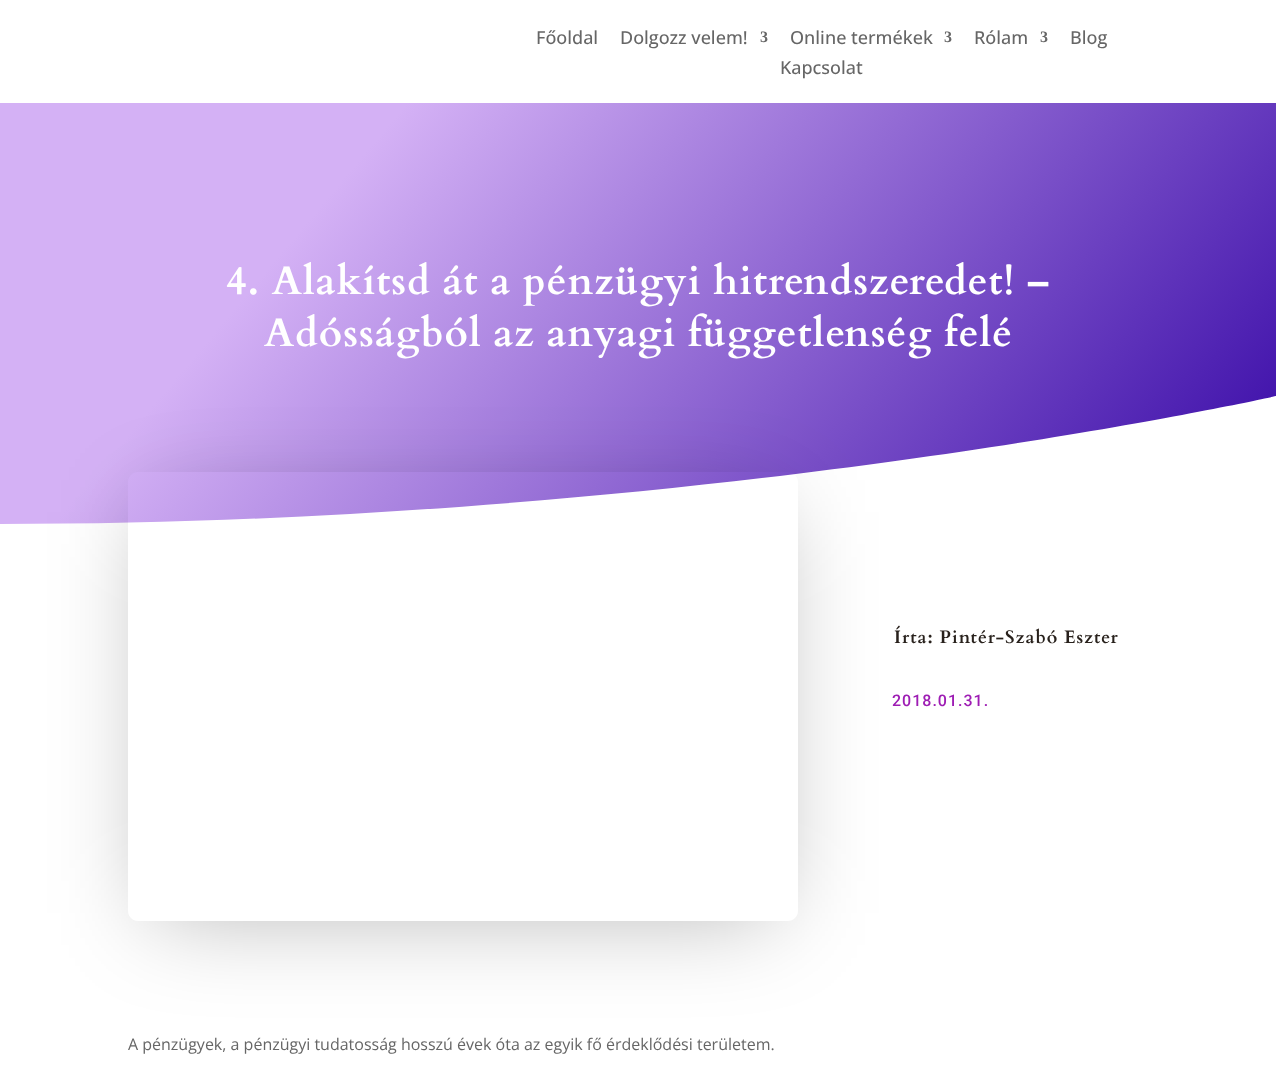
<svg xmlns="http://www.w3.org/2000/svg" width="1276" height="1075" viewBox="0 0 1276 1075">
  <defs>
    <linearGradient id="g1" gradientUnits="userSpaceOnUse" x1="160" y1="-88" x2="1116" y2="715"><stop offset="0.25" stop-color="#d4b1f5"/><stop offset="1" stop-color="#3607a6"/></linearGradient>
    <clipPath id="clip1"><path d="M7 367H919V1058H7ZM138 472H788C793.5 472 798 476.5 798 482V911C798 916.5 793.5 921 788 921H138C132.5 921 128 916.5 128 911V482C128 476.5 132.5 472 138 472Z" clip-rule="evenodd"/></clipPath>
    <filter id="blur1" x="-50%" y="-200%" width="200%" height="500%"><feGaussianBlur stdDeviation="48"/></filter>
  </defs>
  <rect width="100%" height="100%" fill="#ffffff"/>
  <text x="536" y="44" font-family="Open Sans" font-size="18" font-weight="500" fill="#666666">Főoldal</text>
  <text x="620" y="44" font-family="Open Sans" font-size="18" font-weight="500" fill="#666666">Dolgozz velem!</text>
  <text x="760" y="42" font-family="Liberation Serif" font-size="16" font-weight="bold" fill="#666666">3</text>
  <text x="790" y="44" font-family="Open Sans" font-size="18" font-weight="500" fill="#666666">Online termékek</text>
  <text x="944" y="42" font-family="Liberation Serif" font-size="16" font-weight="bold" fill="#666666">3</text>
  <text x="974" y="44" font-family="Open Sans" font-size="18" font-weight="500" fill="#666666">Rólam</text>
  <text x="1040" y="42" font-family="Liberation Serif" font-size="16" font-weight="bold" fill="#666666">3</text>
  <text x="1070" y="44" font-family="Open Sans" font-size="18" font-weight="500" fill="#666666">Blog</text>
  <text x="780" y="74" font-family="Open Sans" font-size="18" font-weight="500" fill="#666666">Kapcsolat</text>
  <rect x="0" y="103" width="1276" height="421" fill="url(#g1)"/>
  <text x="226" y="294" font-family="Cardo" font-size="40" font-weight="bold" letter-spacing="1" fill="#ffffff">4. Alakítsd át a pénzügyi hitrendszeredet! –</text>
  <text x="264" y="346" font-family="Cardo" font-size="40" font-weight="bold" letter-spacing="1" fill="#ffffff">Adósságból az anyagi függetlenség felé</text>
  <path d="M1276 524H0C705 524 1276 396 1276 396Z" fill="#ffffff"/>
  <g clip-path="url(#clip1)">
    <rect x="152" y="512" width="622" height="401" fill="#000000" fill-opacity="0.3" filter="url(#blur1)"/>
  </g>
  <text x="894" y="643" font-family="Cardo" font-size="18" font-weight="bold" letter-spacing="1" fill="#28211c">Írta: Pintér-Szabó Eszter</text>
  <text x="892" y="706" font-family="Roboto" font-size="16" font-weight="500" letter-spacing="1" fill="#9e1db4">2018.01.31.</text>
  <text x="128" y="1050" font-family="Open Sans" font-size="16" fill="#666666">A pénzügyek, a pénzügyi tudatosság hosszú évek óta az egyik fő érdeklődési területem.</text>
</svg>
